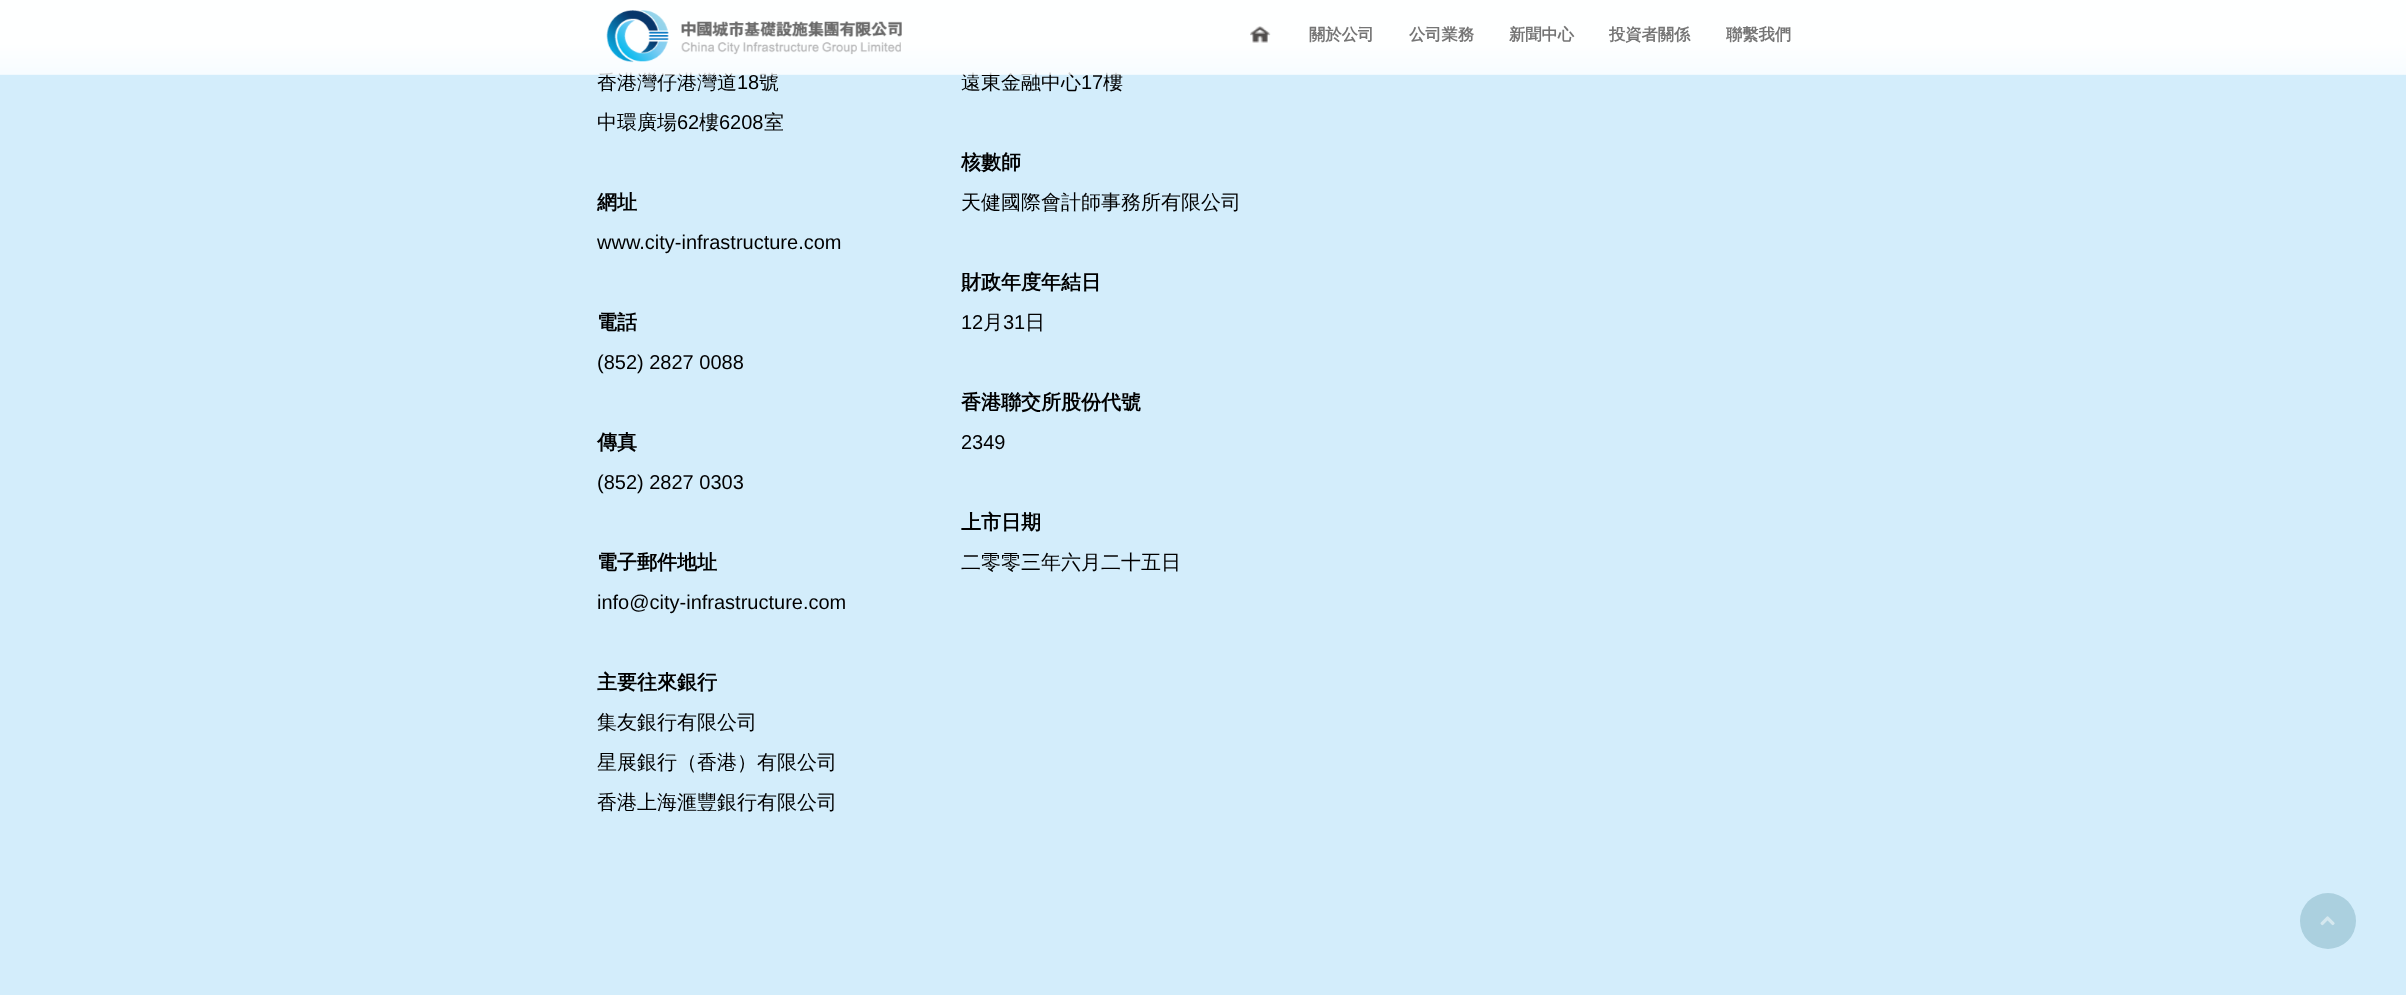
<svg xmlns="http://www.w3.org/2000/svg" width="2406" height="998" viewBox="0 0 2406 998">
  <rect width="100%" height="100%" fill="#ffffff"/>
  <rect x="0" y="0" width="2406" height="995" fill="#d3edfb"/>
  <text x="597" y="89" font-family="WenQuanYi Zen Hei" font-size="20" font-weight="500" fill="#000000">香港灣仔港灣道</text>
  <text x="759" y="89" font-family="WenQuanYi Zen Hei" font-size="20" font-weight="500" fill="#000000">號</text>
  <text x="961" y="89" font-family="WenQuanYi Zen Hei" font-size="20" font-weight="500" fill="#000000">遠東金融中心</text>
  <text x="1103" y="89" font-family="WenQuanYi Zen Hei" font-size="20" font-weight="500" fill="#000000">樓</text>
  <image x="0" y="0" width="2406" height="75" href="img1.png"/>
  <image x="606" y="10" width="296" height="53" href="img2.png"/>
  <image x="1250" y="26" width="21" height="17" href="img3.png"/>
  <text x="1309" y="40" font-family="WenQuanYi Zen Hei" font-size="16.25" font-weight="bold" fill="#757575">關於公司</text>
  <text x="1409" y="40" font-family="WenQuanYi Zen Hei" font-size="16.25" font-weight="bold" fill="#757575">公司業務</text>
  <text x="1509" y="40" font-family="WenQuanYi Zen Hei" font-size="16.25" font-weight="bold" fill="#757575">新聞中心</text>
  <text x="1609" y="40" font-family="WenQuanYi Zen Hei" font-size="16.25" font-weight="bold" fill="#757575">投資者關係</text>
  <text x="1726" y="40" font-family="WenQuanYi Zen Hei" font-size="16.25" font-weight="bold" fill="#757575">聯繫我們</text>
  <text x="737" y="89" font-family="Liberation Sans" font-size="20" fill="#000000">18</text>
  <text x="597" y="129" font-family="WenQuanYi Zen Hei" font-size="20" font-weight="500" fill="#000000">中環廣場</text>
  <text x="677" y="129" font-family="Liberation Sans" font-size="20" fill="#000000">62</text>
  <text x="699" y="129" font-family="WenQuanYi Zen Hei" font-size="20" font-weight="500" fill="#000000">樓</text>
  <text x="719" y="129" font-family="Liberation Sans" font-size="20" fill="#000000">6208</text>
  <text x="764" y="129" font-family="WenQuanYi Zen Hei" font-size="20" font-weight="500" fill="#000000">室</text>
  <text x="597" y="209" font-family="WenQuanYi Zen Hei" font-size="20" font-weight="bold" fill="#000000">網址</text>
  <text x="597" y="249" font-family="Liberation Sans" font-size="20" fill="#000000">www.city-infrastructure.com</text>
  <text x="597" y="329" font-family="WenQuanYi Zen Hei" font-size="20" font-weight="bold" fill="#000000">電話</text>
  <text x="597" y="369" font-family="Liberation Sans" font-size="20" fill="#000000">(852) 2827 0088</text>
  <text x="597" y="449" font-family="WenQuanYi Zen Hei" font-size="20" font-weight="bold" fill="#000000">傳真</text>
  <text x="597" y="489" font-family="Liberation Sans" font-size="20" fill="#000000">(852) 2827 0303</text>
  <text x="597" y="569" font-family="WenQuanYi Zen Hei" font-size="20" font-weight="bold" fill="#000000">電子郵件地址</text>
  <text x="597" y="609" font-family="Liberation Sans" font-size="20" fill="#000000">info@city-infrastructure.com</text>
  <text x="597" y="689" font-family="WenQuanYi Zen Hei" font-size="20" font-weight="bold" fill="#000000">主要往來銀行</text>
  <text x="597" y="729" font-family="WenQuanYi Zen Hei" font-size="20" font-weight="500" fill="#000000">集友銀行有限公司</text>
  <text x="597" y="769" font-family="WenQuanYi Zen Hei" font-size="20" font-weight="500" fill="#000000">星展銀行（香港）有限公司</text>
  <text x="597" y="809" font-family="WenQuanYi Zen Hei" font-size="20" font-weight="500" fill="#000000">香港上海滙豐銀行有限公司</text>
  <text x="1081" y="89" font-family="Liberation Sans" font-size="20" fill="#000000">17</text>
  <text x="961" y="169" font-family="WenQuanYi Zen Hei" font-size="20" font-weight="bold" fill="#000000">核數師</text>
  <text x="961" y="209" font-family="WenQuanYi Zen Hei" font-size="20" font-weight="500" fill="#000000">天健國際會計師事務所有限公司</text>
  <text x="961" y="289" font-family="WenQuanYi Zen Hei" font-size="20" font-weight="bold" fill="#000000">財政年度年結日</text>
  <text x="961" y="329" font-family="Liberation Sans" font-size="20" fill="#000000">12</text>
  <text x="983" y="329" font-family="WenQuanYi Zen Hei" font-size="20" font-weight="500" fill="#000000">月</text>
  <text x="1003" y="329" font-family="Liberation Sans" font-size="20" fill="#000000">31</text>
  <text x="1025" y="329" font-family="WenQuanYi Zen Hei" font-size="20" font-weight="500" fill="#000000">日</text>
  <text x="961" y="409" font-family="WenQuanYi Zen Hei" font-size="20" font-weight="bold" fill="#000000">香港聯交所股份代號</text>
  <text x="961" y="449" font-family="Liberation Sans" font-size="20" fill="#000000">2349</text>
  <text x="961" y="529" font-family="WenQuanYi Zen Hei" font-size="20" font-weight="bold" fill="#000000">上市日期</text>
  <text x="961" y="569" font-family="WenQuanYi Zen Hei" font-size="20" font-weight="500" fill="#000000">二零零三年六月二十五日</text>
  <circle cx="2328" cy="921" r="28" fill="#abd0df"/>
  <image x="2320" y="916" width="15" height="10" href="img4.png"/>
</svg>
